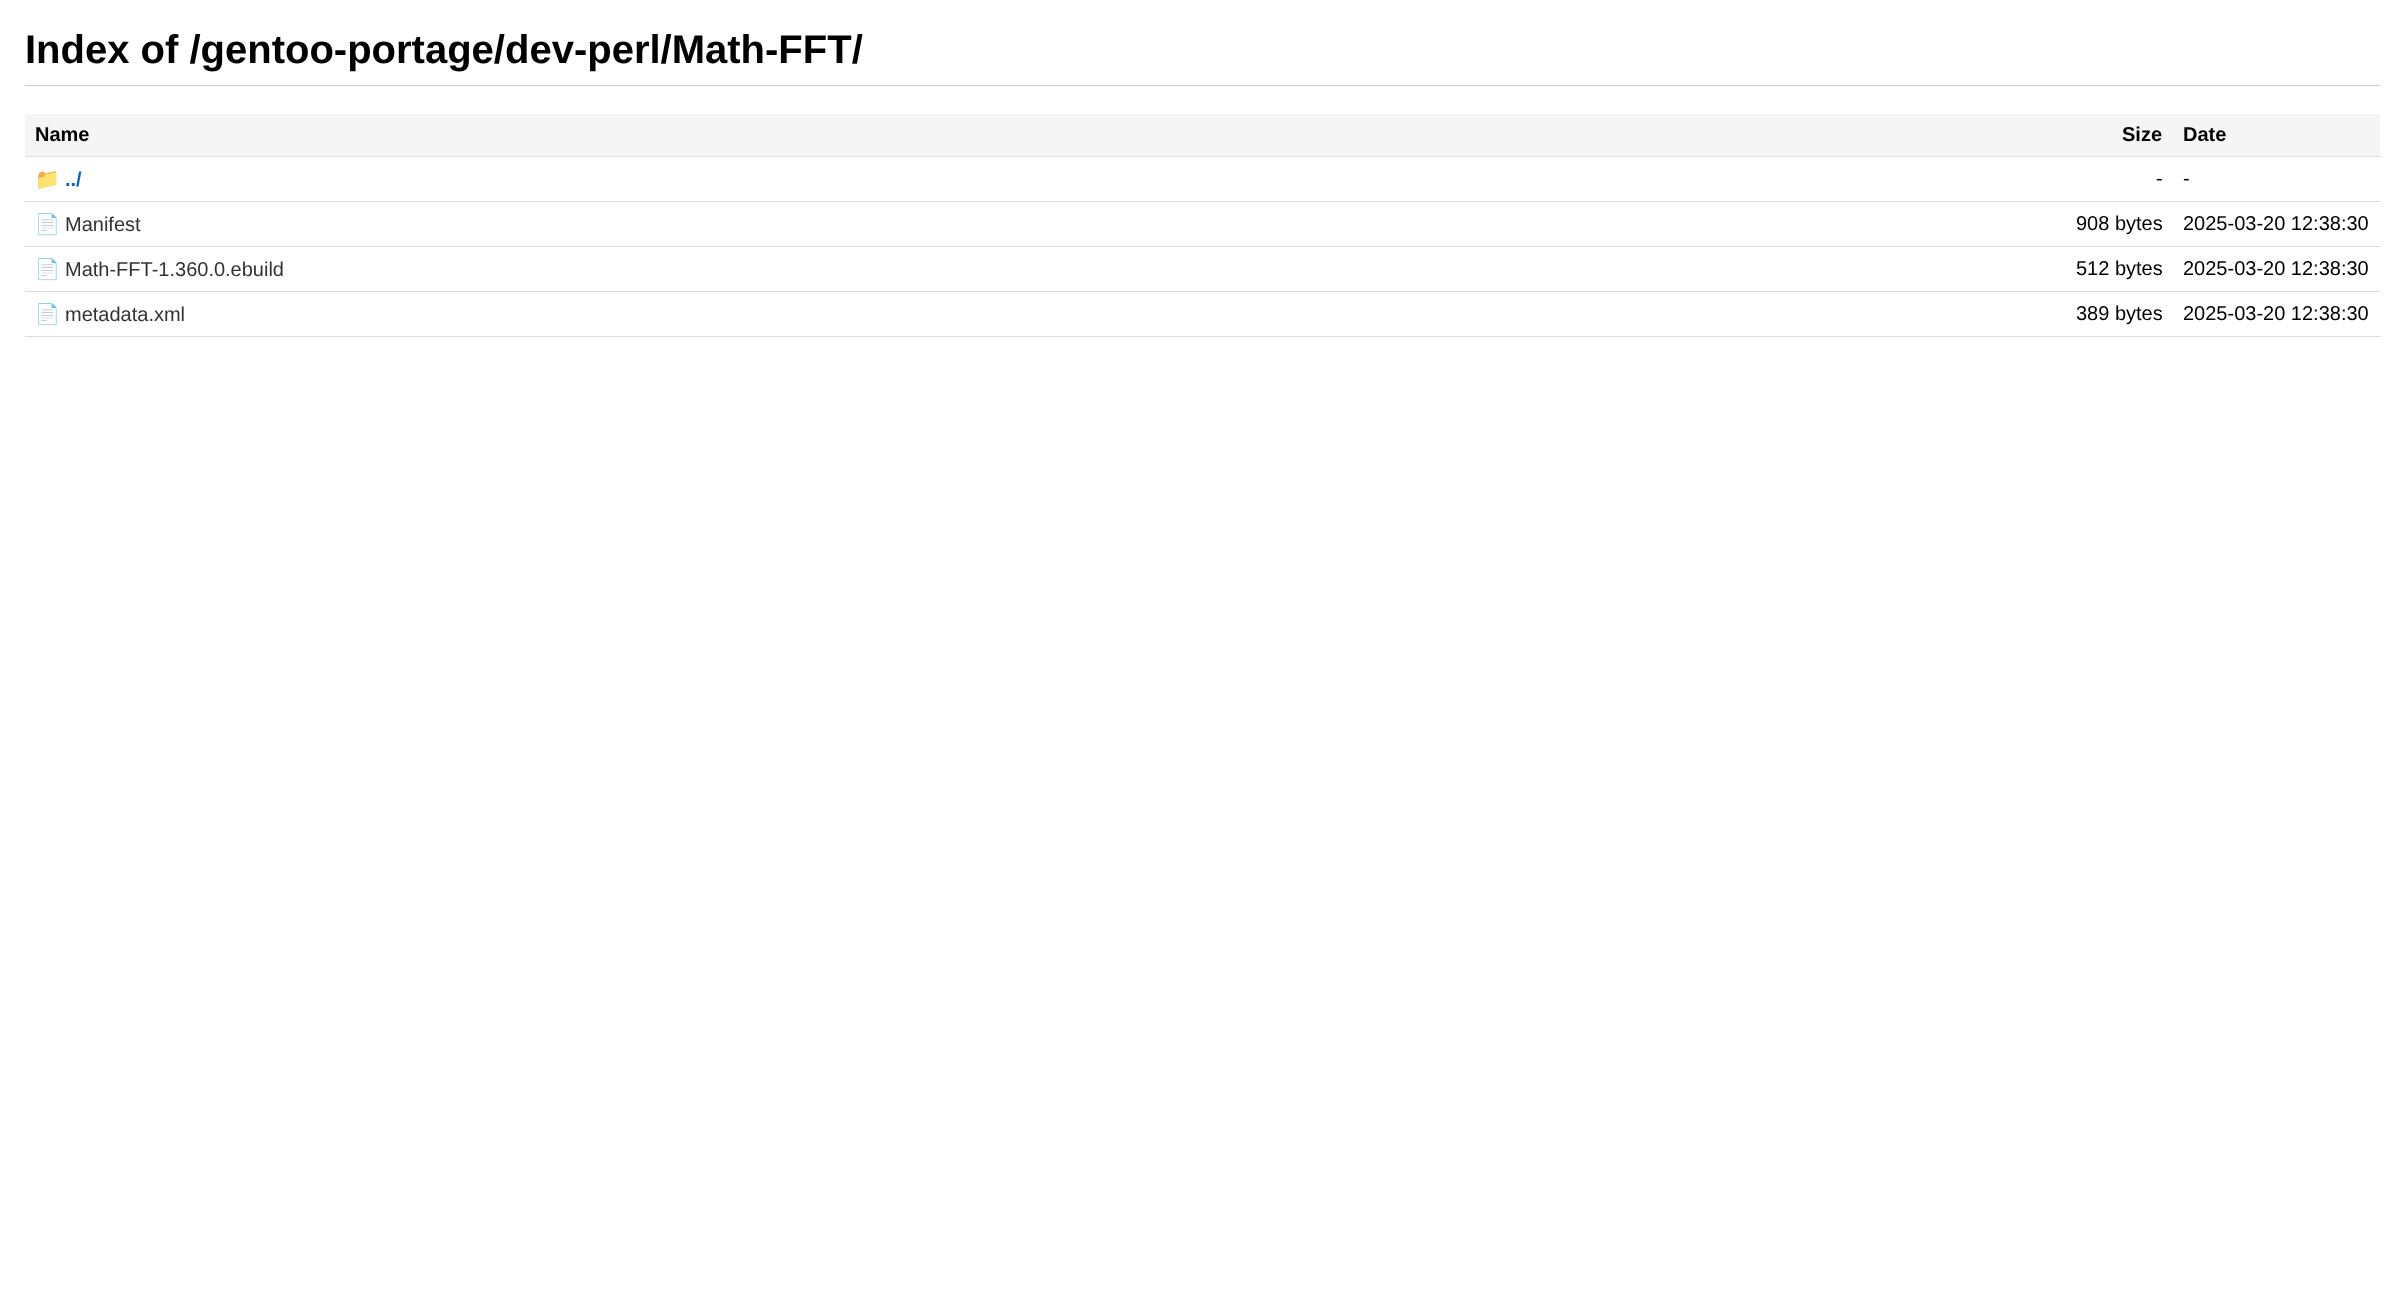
<svg xmlns="http://www.w3.org/2000/svg" width="2405" height="1301" viewBox="0 0 2405 1301">
  <rect width="100%" height="100%" fill="#ffffff"/>
  <rect x="25" y="85" width="2355" height="1" fill="#cccccc"/>
  <text x="25" y="63" font-family="Liberation Sans" font-size="40" font-weight="bold" fill="#000000">Index of /gentoo-portage/dev-perl/Math-FFT/</text>
  <rect x="25" y="114" width="2355" height="42" fill="#f5f5f5"/>
  <text x="35" y="141" font-family="Liberation Sans" font-size="20" font-weight="bold" fill="#000000">Name</text>
  <text x="2122" y="141" font-family="Liberation Sans" font-size="20" font-weight="bold" fill="#000000">Size</text>
  <rect x="25" y="156" width="2356" height="1" fill="#dddddd"/>
  <text x="2183" y="141" font-family="Liberation Sans" font-size="20" font-weight="bold" fill="#000000">Date</text>
  <text x="35" y="186" font-family="Noto Color Emoji" font-size="20" font-weight="bold" fill="#0066cc">📁</text>
  <text x="65" y="186" font-family="Liberation Sans" font-size="20" font-weight="bold" fill="#0066cc">../</text>
  <text x="2156" y="185" font-family="Liberation Sans" font-size="20" fill="#000000">-</text>
  <rect x="25" y="201" width="2356" height="1" fill="#dddddd"/>
  <text x="2183" y="185" font-family="Liberation Sans" font-size="20" fill="#000000">-</text>
  <text x="35" y="231" font-family="Noto Color Emoji" font-size="20" fill="#333333">📄</text>
  <text x="65" y="231" font-family="Liberation Sans" font-size="20" fill="#333333">Manifest</text>
  <text x="2076" y="230" font-family="Liberation Sans" font-size="20" fill="#000000">908 bytes</text>
  <rect x="25" y="246" width="2356" height="1" fill="#dddddd"/>
  <text x="2183" y="230" font-family="Liberation Sans" font-size="20" fill="#000000">2025-03-20 12:38:30</text>
  <text x="35" y="276" font-family="Noto Color Emoji" font-size="20" fill="#333333">📄</text>
  <text x="65" y="276" font-family="Liberation Sans" font-size="20" fill="#333333">Math-FFT-1.360.0.ebuild</text>
  <text x="2076" y="275" font-family="Liberation Sans" font-size="20" fill="#000000">512 bytes</text>
  <rect x="25" y="291" width="2356" height="1" fill="#dddddd"/>
  <text x="2183" y="275" font-family="Liberation Sans" font-size="20" fill="#000000">2025-03-20 12:38:30</text>
  <text x="35" y="321" font-family="Noto Color Emoji" font-size="20" fill="#333333">📄</text>
  <text x="65" y="321" font-family="Liberation Sans" font-size="20" fill="#333333">metadata.xml</text>
  <text x="2076" y="320" font-family="Liberation Sans" font-size="20" fill="#000000">389 bytes</text>
  <rect x="25" y="336" width="2356" height="1" fill="#dddddd"/>
  <text x="2183" y="320" font-family="Liberation Sans" font-size="20" fill="#000000">2025-03-20 12:38:30</text>
</svg>
